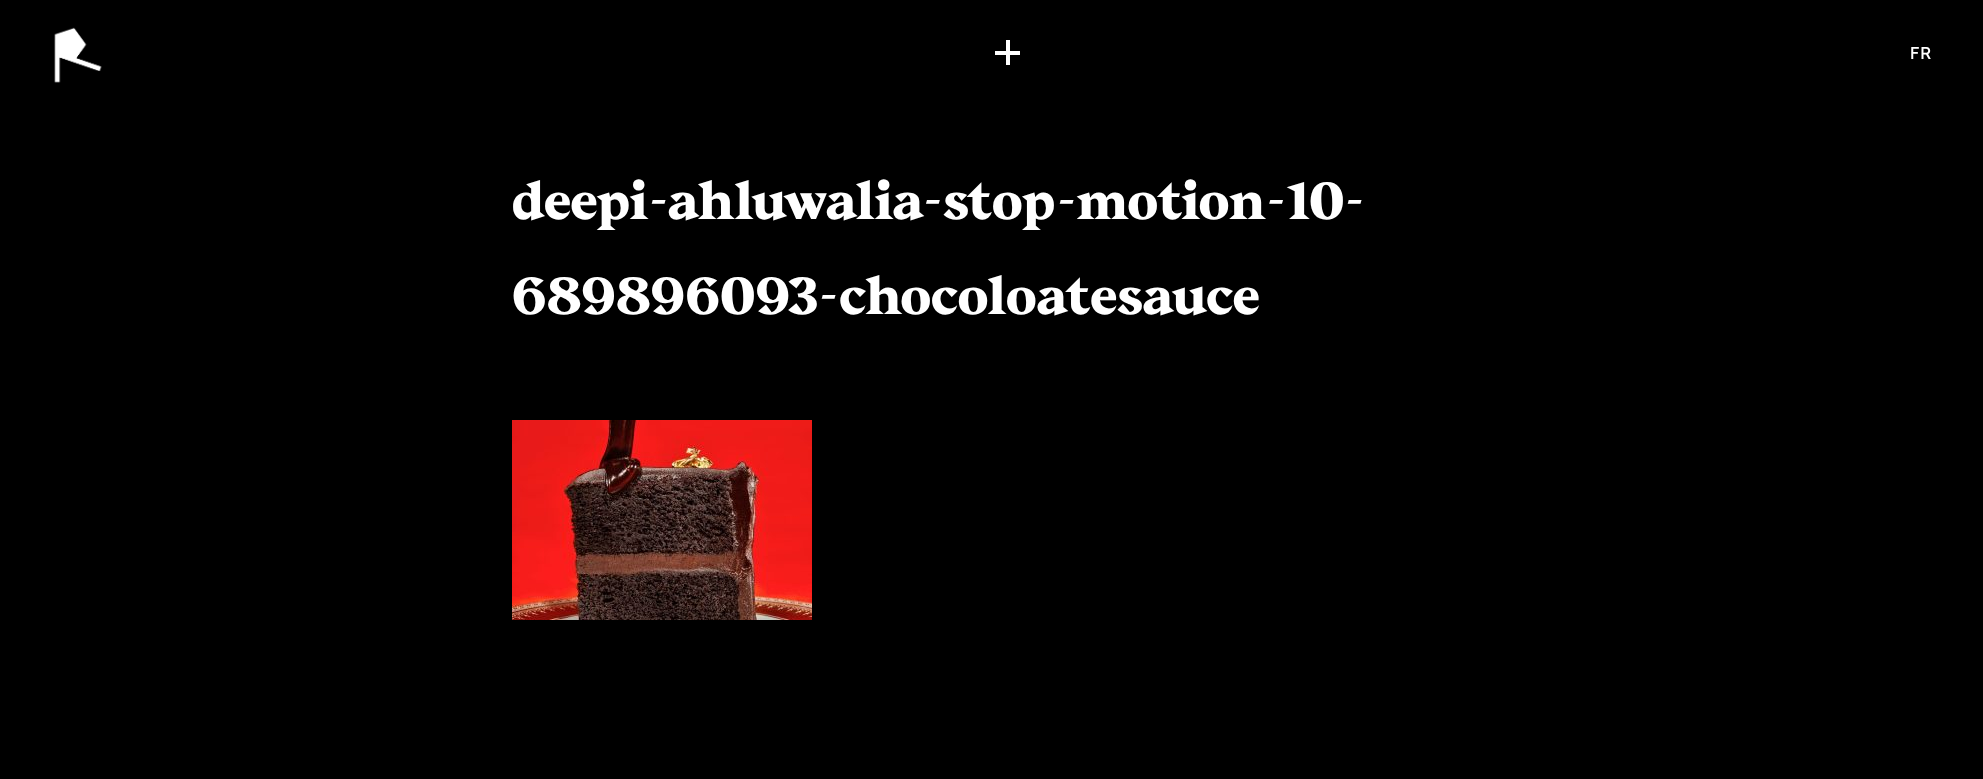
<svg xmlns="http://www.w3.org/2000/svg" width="1983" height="779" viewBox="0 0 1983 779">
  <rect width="100%" height="100%" fill="#000000"/>
  <image x="54" y="27" width="48" height="56" href="img1.png"/>
  <rect x="995" y="51" width="25" height="4" fill="#ffffff"/>
  <rect x="1006" y="40" width="4" height="25" fill="#ffffff"/>
  <text x="1910" y="59" font-family="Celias" font-size="16" font-weight="500" letter-spacing="1" fill="#ffffff">FR</text>
  <text x="512" y="219" font-family="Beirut" font-size="54" font-weight="bold" fill="#ffffff">deepi-ahluwalia-stop-motion-10-</text>
  <text x="512" y="314" font-family="Beirut" font-size="54" font-weight="bold" fill="#ffffff">689896093-chocoloatesauce</text>
  <image x="512" y="420" width="300" height="200" href="img2.png"/>
</svg>
